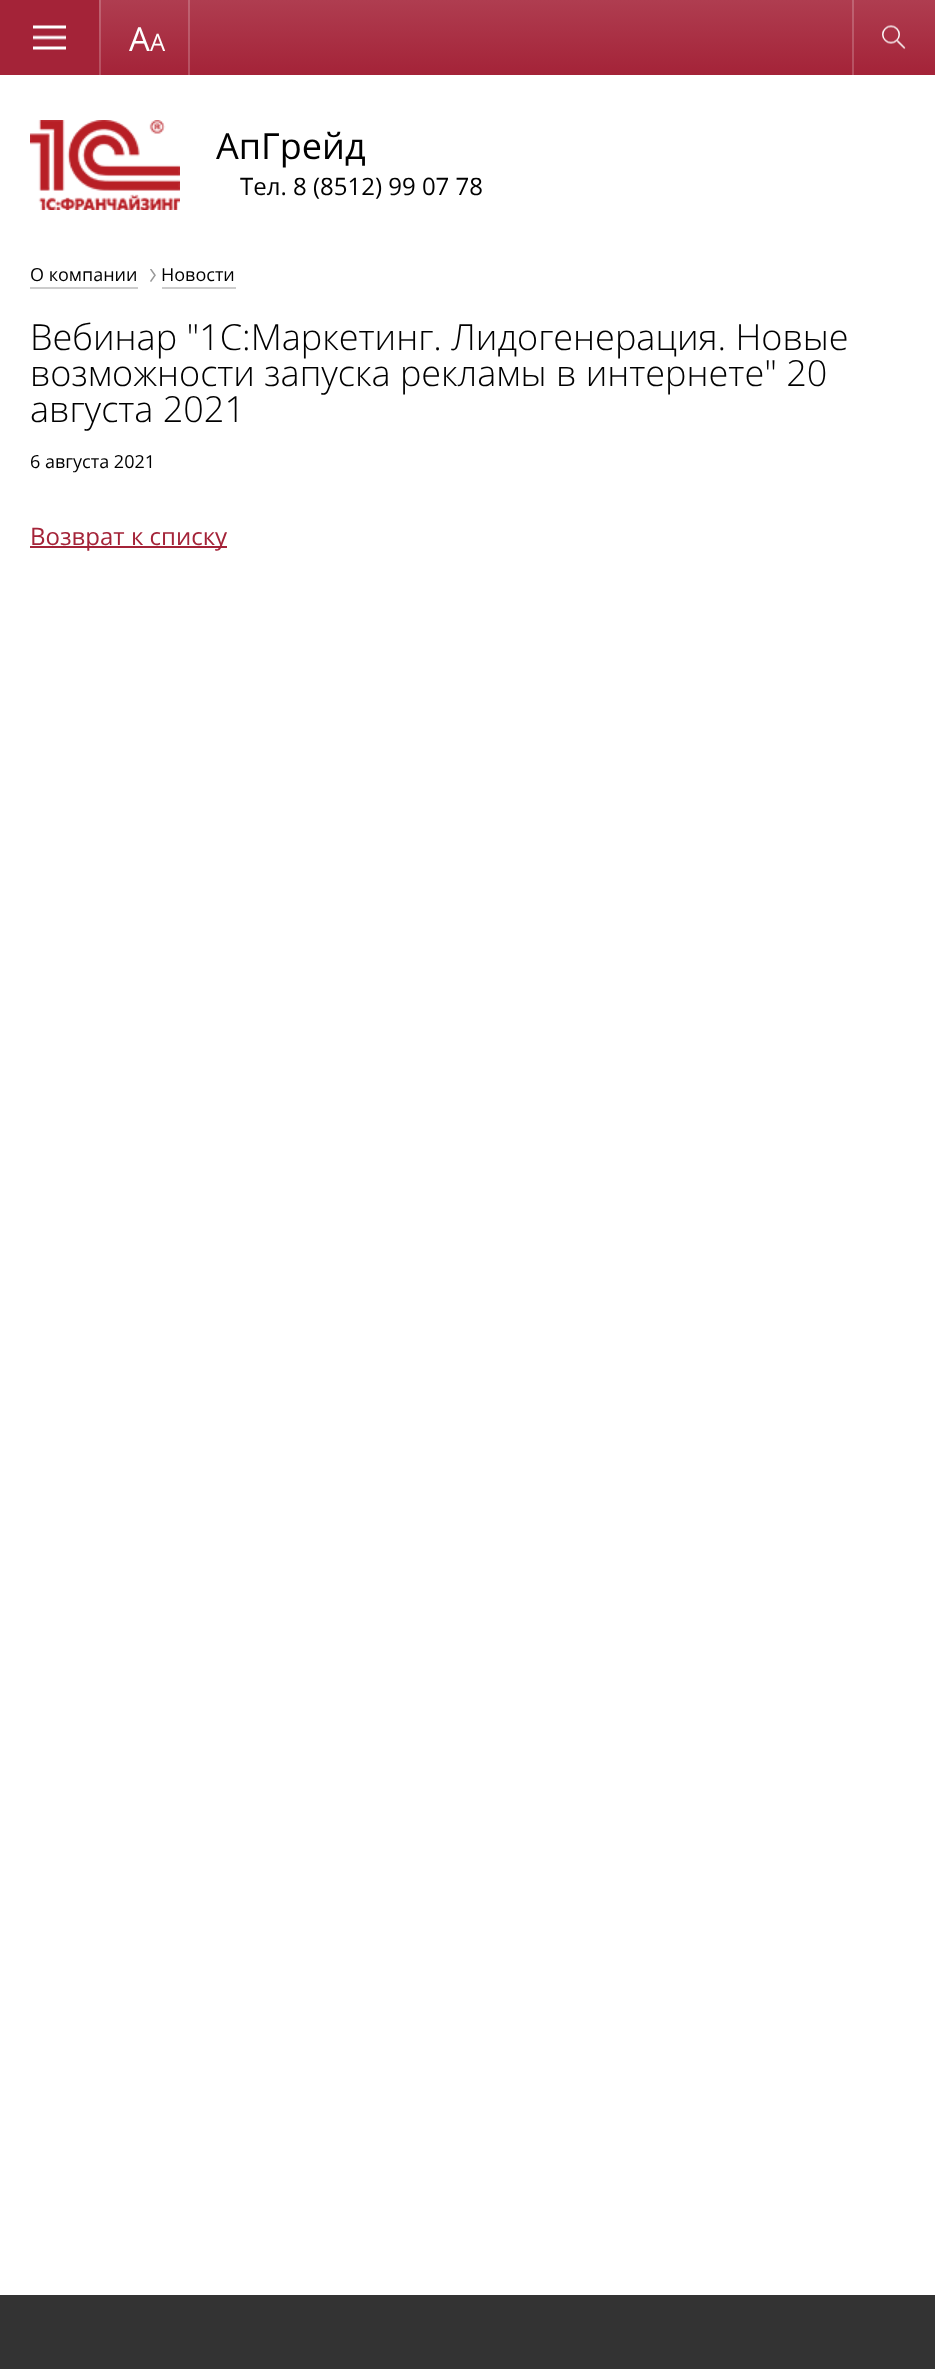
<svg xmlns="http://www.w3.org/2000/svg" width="935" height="2369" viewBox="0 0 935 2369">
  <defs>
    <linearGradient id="g1" gradientUnits="userSpaceOnUse" x1="468" y1="0" x2="468" y2="75"><stop offset="0" stop-color="#af3d50"/><stop offset="1" stop-color="#a42338"/></linearGradient>
    <linearGradient id="g2" gradientUnits="userSpaceOnUse" x1="468" y1="0" x2="468" y2="75"><stop offset="0" stop-color="#bf6473"/><stop offset="1" stop-color="#b64f60"/></linearGradient>
  </defs>
  <rect width="100%" height="100%" fill="#ffffff"/>
  <rect x="101" y="0" width="834" height="75" fill="url(#g1)"/>
  <rect x="188" y="0" width="2" height="75" fill="url(#g2)"/>
  <rect x="99" y="0" width="2" height="75" fill="url(#g2)"/>
  <rect x="852" y="0" width="2" height="75" fill="url(#g2)"/>
  <image x="882" y="25" width="24" height="25" href="img1.png"/>
  <rect x="0" y="0" width="99" height="75" fill="#a42338"/>
  <image x="33" y="25" width="33" height="25" href="img2.png"/>
  <text x="129" y="51" font-family="Open Sans" font-size="33" fill="#ffffff">A</text>
  <text x="150" y="51" font-family="Open Sans" font-size="24" fill="#ffffff">A</text>
  <image x="30" y="120" width="150" height="90" href="img3.png"/>
  <text x="216" y="159" font-family="Open Sans" font-size="36" fill="#000000">АпГрейд</text>
  <text x="240" y="195" font-family="Open Sans" font-size="24" fill="#000000">Тел. 8 (8512) 99 07 78</text>
  <text x="30" y="281" font-family="Open Sans" font-size="18" fill="#000000">О компании</text>
  <rect x="30" y="287" width="108" height="2" fill="#cccccc"/>
  <image x="150" y="269" width="6" height="13" href="img4.png"/>
  <text x="161" y="281" font-family="Open Sans" font-size="18" fill="#000000">Новости</text>
  <rect x="162" y="287" width="74" height="2" fill="#cccccc"/>
  <text x="30" y="350" font-family="Open Sans" font-size="36" font-weight="300" fill="#000000">Вебинар "1С:Маркетинг. Лидогенерация. Новые</text>
  <text x="30" y="386" font-family="Open Sans" font-size="36" font-weight="300" fill="#000000">возможности запуска рекламы в интернете" 20</text>
  <text x="30" y="422" font-family="Open Sans" font-size="36" font-weight="300" fill="#000000">августа 2021</text>
  <text x="30" y="468" font-family="Open Sans" font-size="18" fill="#000000">6 августа 2021</text>
  <rect x="30" y="546" width="197" height="2" fill="#a42338"/>
  <text x="30" y="545" font-family="Open Sans" font-size="24" fill="#a42338">Возврат к списку</text>
  <rect x="0" y="2295" width="935" height="74" fill="#333333"/>
</svg>
